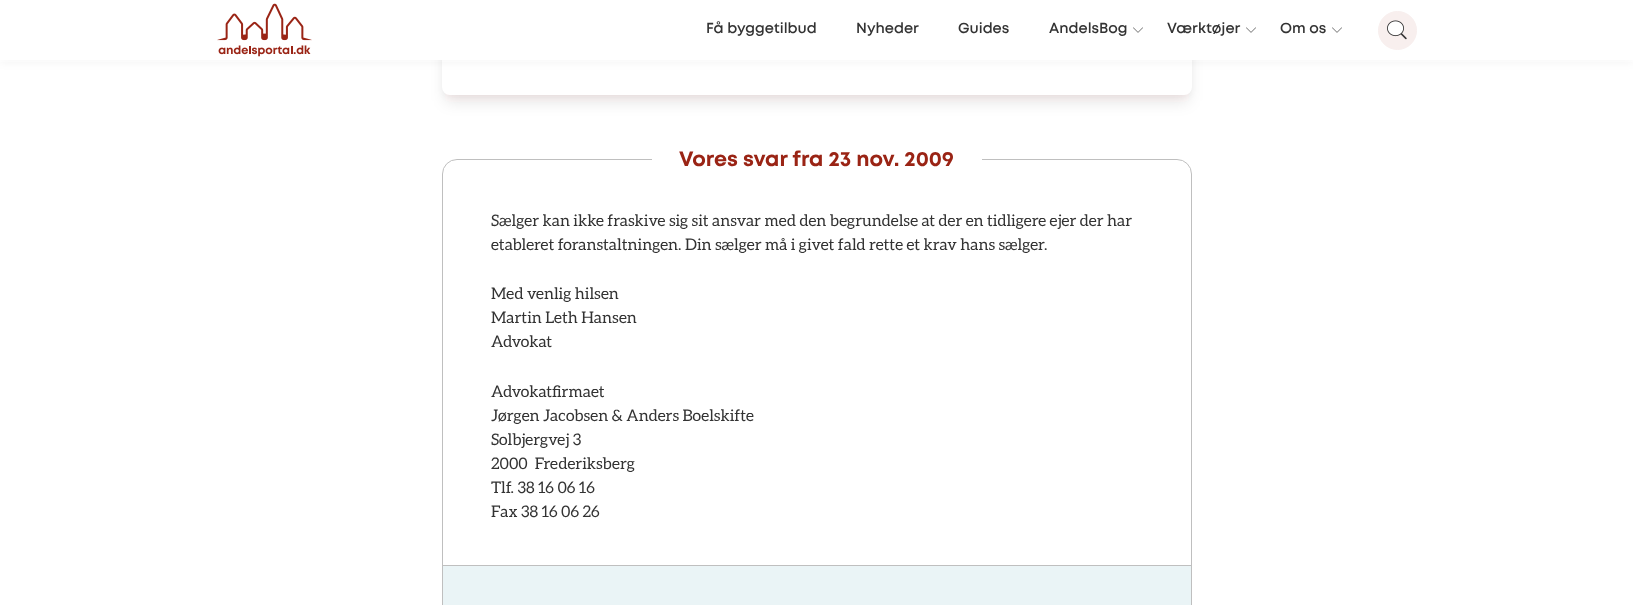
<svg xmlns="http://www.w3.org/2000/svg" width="1633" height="605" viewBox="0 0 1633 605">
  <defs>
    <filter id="blur1" x="-50%" y="-200%" width="200%" height="500%"><feGaussianBlur stdDeviation="3"/></filter>
    <filter id="blur2" x="-50%" y="-200%" width="200%" height="500%"><feGaussianBlur stdDeviation="7.5"/></filter>
    <filter id="blur3" x="-50%" y="-200%" width="200%" height="500%"><feGaussianBlur stdDeviation="5"/></filter>
  </defs>
  <rect width="100%" height="100%" fill="#ffffff"/>
  <rect x="444" y="-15" width="746" height="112" rx="6" fill="#3e1914" fill-opacity="0.05" filter="url(#blur1)"/>
  <rect x="445" y="-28" width="744" height="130" rx="5" fill="#3e1914" fill-opacity="0.1" filter="url(#blur2)"/>
  <rect x="442" y="-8" width="750" height="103" rx="8" fill="#ffffff"/>
  <rect x="0" y="2" width="1633" height="60" fill="#333333" fill-opacity="0.05" filter="url(#blur3)"/>
  <rect x="0" y="0" width="1633" height="60" fill="#ffffff"/>
  <image x="217" y="3" width="95" height="54" href="img1.png"/>
  <text x="706" y="33" font-family="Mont" font-size="14.5" font-weight="600" fill="#333333">Få byggetilbud</text>
  <text x="856" y="33" font-family="Mont" font-size="14.5" font-weight="600" fill="#333333">Nyheder</text>
  <text x="958" y="33" font-family="Mont" font-size="14.5" font-weight="600" fill="#333333">Guides</text>
  <text x="1049" y="33" font-family="Mont" font-size="14.5" font-weight="600" fill="#333333">AndelsBog</text>
  <image x="1133" y="27" width="10" height="6" href="img2.png"/>
  <text x="1167" y="33" font-family="Mont" font-size="14.5" font-weight="600" fill="#333333">Værktøjer</text>
  <image x="1246" y="27" width="10" height="6" href="img2.png"/>
  <text x="1280" y="33" font-family="Mont" font-size="14.5" font-weight="600" fill="#333333">Om os</text>
  <image x="1332" y="27" width="10" height="6" href="img2.png"/>
  <circle cx="1397.5" cy="30.5" r="19" fill="#f8efee" stroke="#f8efee"/>
  <image x="1387" y="20" width="20" height="20" href="img3.png"/>
  <rect x="442.5" y="159.5" width="749" height="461" rx="14.5" fill="none" stroke="#bfbfbf"/>
  <rect x="652" y="159" width="330" height="1" fill="#ffffff"/>
  <text x="679" y="166" font-family="Mont" font-size="20.75" font-weight="bold" fill="#9a2415">Vores svar fra 23 nov. 2009</text>
  <text x="491" y="226" font-family="Aleo" font-size="16" fill="#333333">Sælger kan ikke fraskive sig sit ansvar med den begrundelse at der en tidligere ejer der har</text>
  <text x="491" y="250" font-family="Aleo" font-size="16" fill="#333333">etableret foranstaltningen. Din sælger må i givet fald rette et krav hans sælger.</text>
  <text x="491" y="299" font-family="Aleo" font-size="16" fill="#333333">Med venlig hilsen</text>
  <text x="491" y="323" font-family="Aleo" font-size="16" fill="#333333">Martin Leth Hansen</text>
  <text x="491" y="347" font-family="Aleo" font-size="16" fill="#333333">Advokat</text>
  <text x="491" y="397" font-family="Aleo" font-size="16" fill="#333333">Advokatfirmaet</text>
  <text x="491" y="421" font-family="Aleo" font-size="16" fill="#333333">Jørgen Jacobsen &amp; Anders Boelskifte</text>
  <text x="491" y="445" font-family="Aleo" font-size="16" fill="#333333">Solbjergvej 3</text>
  <text x="491" y="469" font-family="Aleo" font-size="16" fill="#333333" xml:space="preserve">2000  Frederiksberg</text>
  <text x="491" y="493" font-family="Aleo" font-size="16" fill="#333333">Tlf. 38 16 06 16</text>
  <text x="491" y="517" font-family="Aleo" font-size="16" fill="#333333">Fax 38 16 06 26</text>
  <rect x="443" y="566" width="748" height="39" fill="#eaf4f6"/>
  <rect x="443" y="565" width="748" height="1" fill="#bfbfbf"/>
</svg>
